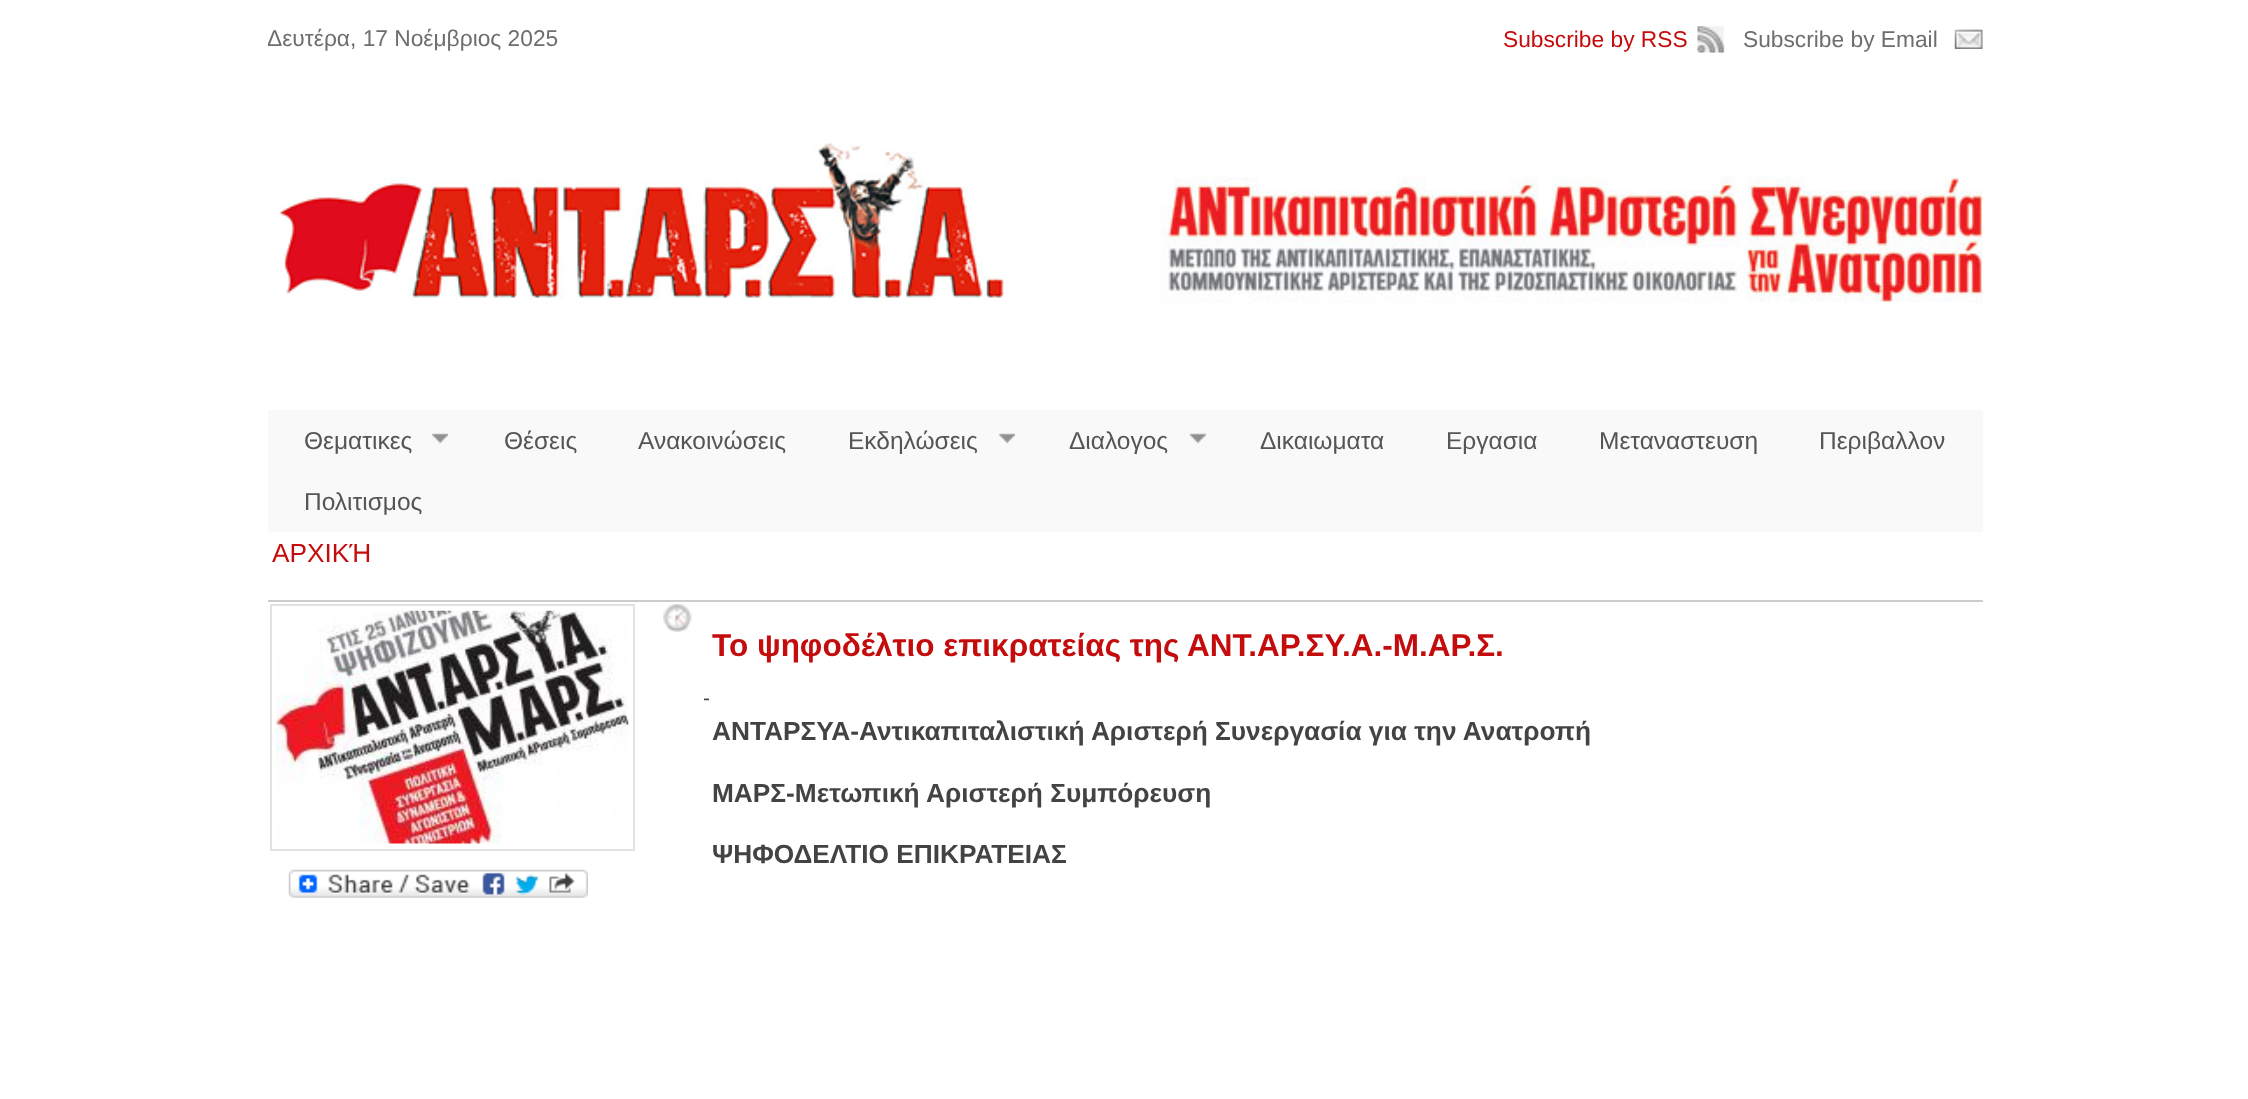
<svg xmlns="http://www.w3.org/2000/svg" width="2248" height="1099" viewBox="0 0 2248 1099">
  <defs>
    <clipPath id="clip1"><rect x="268" y="0" width="1715" height="63"/></clipPath>
  </defs>
  <rect width="100%" height="100%" fill="#ffffff"/>
  <g clip-path="url(#clip1)">
    <text x="267" y="46" font-family="Liberation Sans" font-size="22.75" fill="#6e6e6e">Δευτέρα, 17 Νοέμβριος 2025</text>
  </g>
  <text x="1503" y="47" font-family="Liberation Sans" font-size="22.75" fill="#c50c0c">Subscribe by RSS</text>
  <image x="1697" y="26" width="28" height="27" href="img1.png"/>
  <text x="1743" y="47" font-family="Liberation Sans" font-size="22.75" fill="#6e6e6e">Subscribe by Email</text>
  <image x="1954" y="29" width="29" height="20" href="img2.png"/>
  <image x="279" y="143" width="725" height="157" href="img3.png"/>
  <image x="1160" y="176" width="823" height="127" href="img4.png"/>
  <rect x="268" y="410" width="1715" height="122" fill="#f9f9f9"/>
  <text x="304" y="449" font-family="Liberation Sans" font-size="24.5" fill="#555555">Θεματικες</text>
  <image x="431" y="433" width="17" height="11" href="img5.png"/>
  <text x="504" y="449" font-family="Liberation Sans" font-size="24.5" fill="#555555">Θέσεις</text>
  <text x="638" y="449" font-family="Liberation Sans" font-size="24.5" fill="#555555">Ανακοινώσεις</text>
  <text x="848" y="449" font-family="Liberation Sans" font-size="24.5" fill="#555555">Εκδηλώσεις</text>
  <image x="998" y="433" width="17" height="11" href="img5.png"/>
  <text x="1069" y="449" font-family="Liberation Sans" font-size="24.5" fill="#555555">Διαλογος</text>
  <image x="1189" y="433" width="17" height="11" href="img6.png"/>
  <text x="1260" y="449" font-family="Liberation Sans" font-size="24.5" fill="#555555">Δικαιωματα</text>
  <text x="1446" y="449" font-family="Liberation Sans" font-size="24.5" fill="#555555">Εργασια</text>
  <text x="1599" y="449" font-family="Liberation Sans" font-size="24.5" fill="#555555">Μεταναστευση</text>
  <text x="1819" y="449" font-family="Liberation Sans" font-size="24.5" fill="#555555">Περιβαλλον</text>
  <text x="304" y="510" font-family="Liberation Sans" font-size="24.5" fill="#555555">Πολιτισμος</text>
  <text x="272" y="562" font-family="Liberation Sans" font-size="26.25" fill="#c50c0c">ΑΡΧΙΚΉ</text>
  <rect x="268" y="600" width="1715" height="2" fill="#cccccc"/>
  <rect x="271" y="605" width="363" height="245" fill="none" stroke="#e2e2e2" stroke-width="2"/>
  <image x="276" y="610" width="353" height="234" href="img7.png"/>
  <image x="663" y="604" width="29" height="28" href="img8.png"/>
  <text x="703" y="705" font-family="Liberation Sans" font-size="21" fill="#434343">-</text>
  <image x="288" y="869" width="300" height="29" href="img9.png"/>
  <text x="712" y="656" font-family="Liberation Sans" font-size="31.5" font-weight="bold" fill="#c50c0c">Το ψηφοδέλτιο επικρατείας της ΑΝΤ.ΑΡ.ΣΥ.Α.-Μ.ΑΡ.Σ.</text>
  <text x="712" y="740" font-family="Liberation Sans" font-size="26.25" font-weight="bold" fill="#434343">ΑΝΤΑΡΣΥΑ-Αντικαπιταλιστική Αριστερή Συνεργασία για την Ανατροπή</text>
  <text x="712" y="802" font-family="Liberation Sans" font-size="26.25" font-weight="bold" fill="#434343">ΜΑΡΣ-Μετωπική Αριστερή Συμπόρευση</text>
  <text x="712" y="863" font-family="Liberation Sans" font-size="26.25" font-weight="bold" fill="#434343">ΨΗΦΟΔΕΛΤΙΟ ΕΠΙΚΡΑΤΕΙΑΣ</text>
</svg>
